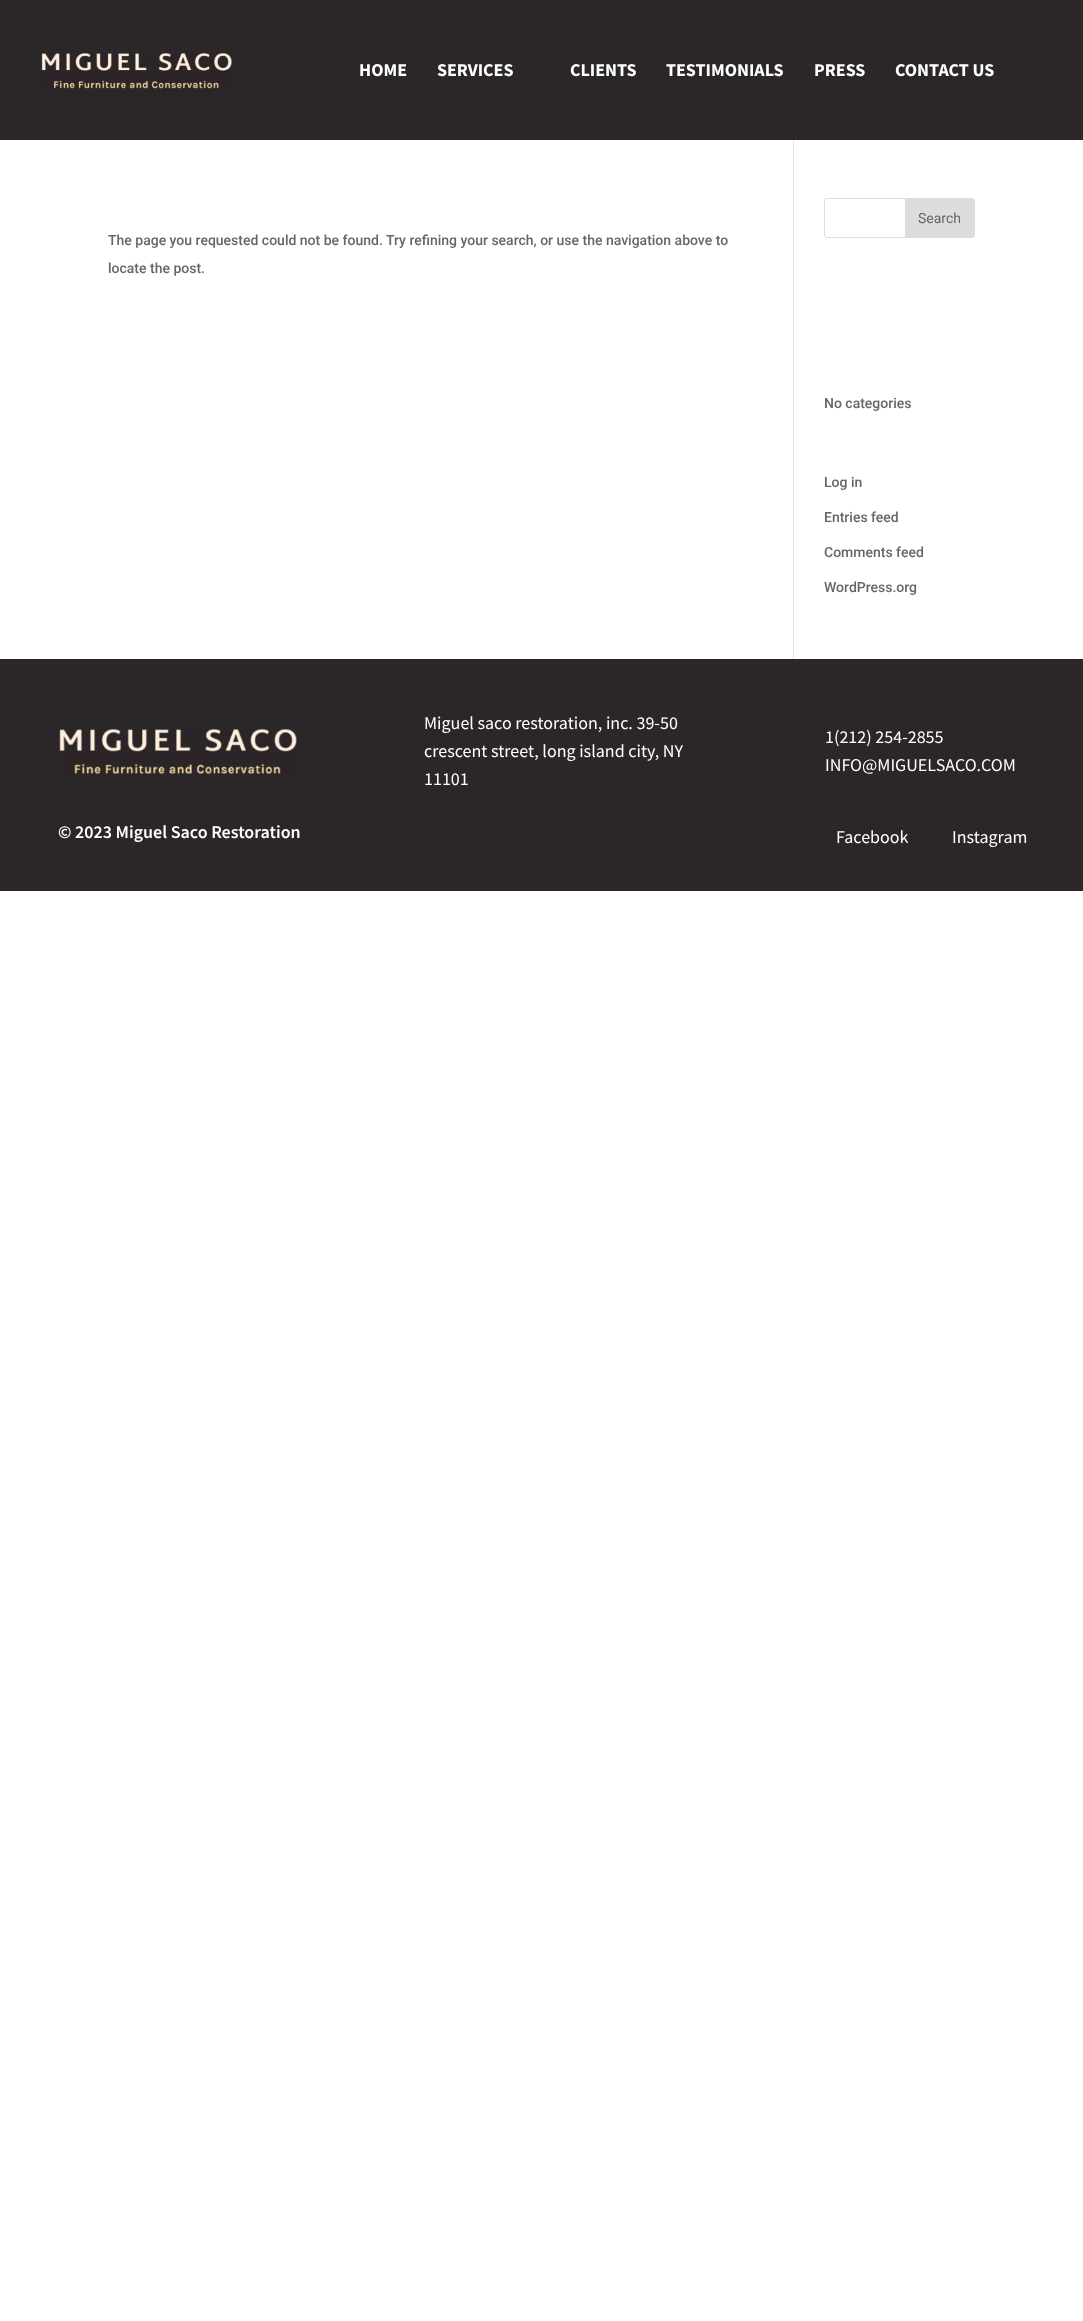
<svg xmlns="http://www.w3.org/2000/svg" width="1083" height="2321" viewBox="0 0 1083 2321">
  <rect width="100%" height="100%" fill="#ffffff"/>
  <rect x="0" y="0" width="1083" height="140" fill="#2b2627"/>
  <image x="41" y="53" width="191" height="36" href="img1.png"/>
  <text x="359" y="76" font-family="Source Sans Pro" font-size="18" font-weight="bold" fill="#ffffff">HOME</text>
  <text x="437" y="76" font-family="Source Sans Pro" font-size="18" font-weight="bold" fill="#ffffff">SERVICES</text>
  <text x="570" y="76" font-family="Source Sans Pro" font-size="18" font-weight="bold" fill="#ffffff">CLIENTS</text>
  <text x="666" y="76" font-family="Source Sans Pro" font-size="18" font-weight="bold" fill="#ffffff">TESTIMONIALS</text>
  <text x="814" y="76" font-family="Source Sans Pro" font-size="18" font-weight="bold" fill="#ffffff">PRESS</text>
  <text x="895" y="76" font-family="Source Sans Pro" font-size="18" font-weight="bold" fill="#ffffff">CONTACT US</text>
  <rect x="793" y="140" width="1" height="519" fill="#e2e2e2"/>
  <text x="108" y="245" font-family="Roboto" font-size="14" font-weight="500" fill="#666666">The page you requested could not be found. Try refining your search, or use the navigation above to</text>
  <text x="108" y="273" font-family="Roboto" font-size="14" font-weight="500" fill="#666666">locate the post.</text>
  <rect x="824.5" y="198.5" width="150" height="39" rx="2.5" fill="none" stroke="#dddddd"/>
  <path d="M905.5 198.5H972C973.5 198.5 974.5 199.5 974.5 201V235C974.5 236.5 973.5 237.5 972 237.5H905.5Z" fill="#dddddd" stroke="#dddddd"/>
  <text x="918" y="223" font-family="Roboto" font-size="14" fill="#666666">Search</text>
  <text x="824" y="408" font-family="Roboto" font-size="14" font-weight="500" fill="#666666">No categories</text>
  <text x="824" y="487" font-family="Roboto" font-size="14" font-weight="500" fill="#666666">Log in</text>
  <text x="824" y="522" font-family="Roboto" font-size="14" font-weight="500" fill="#666666">Entries feed</text>
  <text x="824" y="557" font-family="Roboto" font-size="14" font-weight="500" fill="#666666">Comments feed</text>
  <text x="824" y="592" font-family="Roboto" font-size="14" font-weight="500" fill="#666666">WordPress.org</text>
  <rect x="0" y="659" width="1083" height="232" fill="#2b2627"/>
  <image x="59" y="729" width="238" height="46" href="img2.png"/>
  <text x="424" y="729" font-family="Source Sans Pro" font-size="18" fill="#ffffff">Miguel saco restoration, inc. 39-50</text>
  <text x="424" y="757" font-family="Source Sans Pro" font-size="18" fill="#ffffff">crescent street, long island city, NY</text>
  <text x="424" y="785" font-family="Source Sans Pro" font-size="18" fill="#ffffff">11101</text>
  <text x="825" y="743" font-family="Source Sans Pro" font-size="18" fill="#ffffff">1(212) 254-2855</text>
  <text x="825" y="771" font-family="Source Sans Pro" font-size="18" fill="#ffffff">INFO@MIGUELSACO.COM</text>
  <text x="58" y="838" font-family="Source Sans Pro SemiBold" font-size="18" font-weight="600" fill="#ffffff">© 2023 Miguel Saco Restoration</text>
  <text x="836" y="843" font-family="Source Sans Pro" font-size="18" fill="#ffffff">Facebook</text>
  <text x="952" y="843" font-family="Source Sans Pro" font-size="18" fill="#ffffff">Instagram</text>
</svg>
